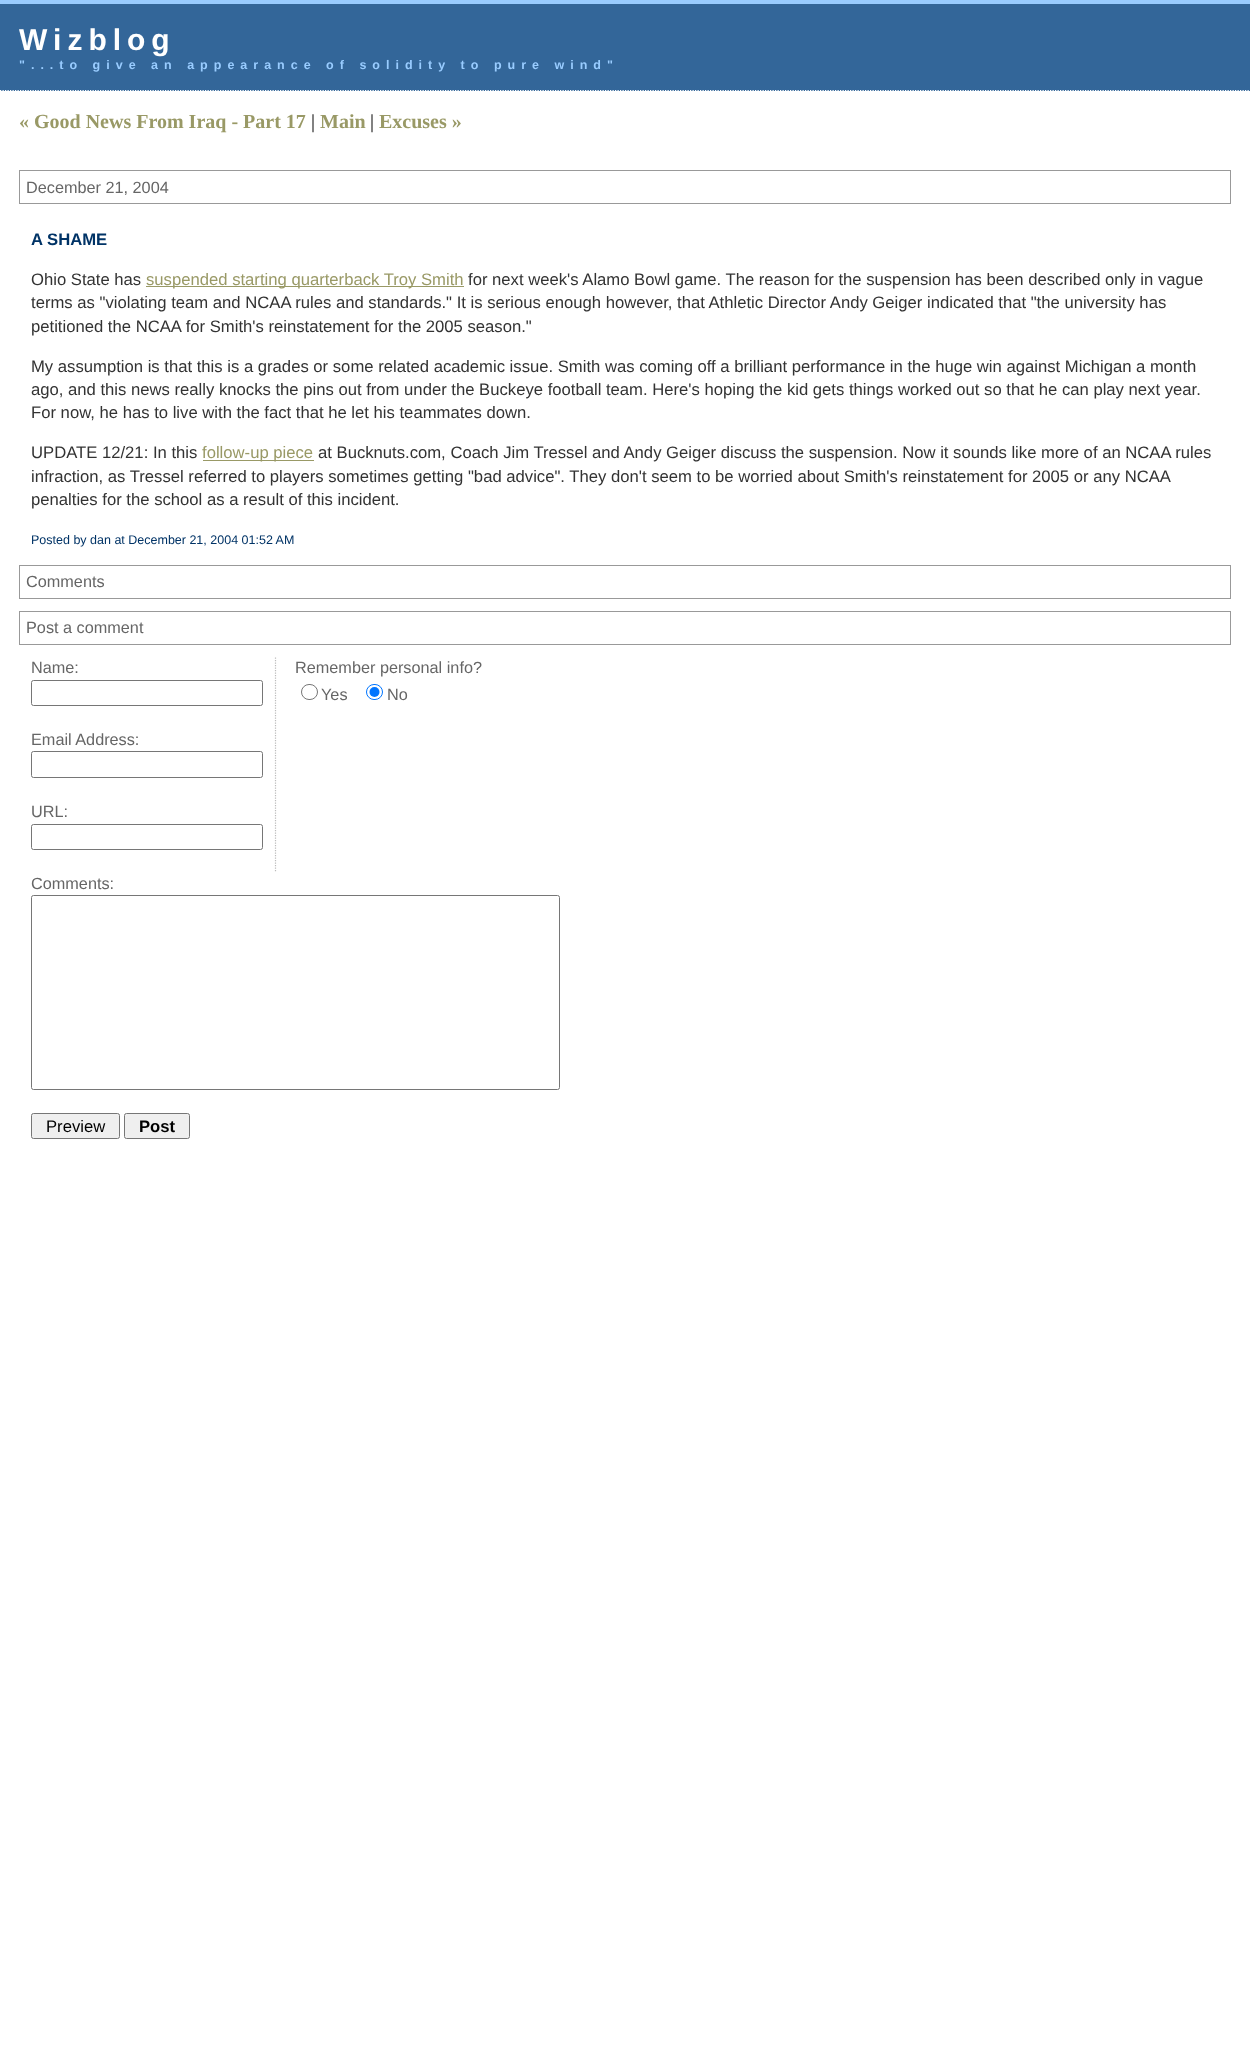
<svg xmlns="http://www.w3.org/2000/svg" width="1250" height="2067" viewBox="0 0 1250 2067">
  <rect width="100%" height="100%" fill="#ffffff"/>
  <rect x="0" y="4" width="1250" height="87" fill="#336699"/>
  <rect x="0" y="0" width="1250" height="4" fill="#99ccff"/>
  <path d="M0 90.5H1250" fill="none" stroke="#ffffff" stroke-width="1.2" stroke-dasharray="1.25 1.25"/>
  <text x="19" y="50" font-family="Liberation Sans" font-size="30" font-weight="bold" letter-spacing="6" fill="#ffffff">Wizblog</text>
  <text x="19" y="69" font-family="Liberation Sans" font-size="12.5" font-weight="bold" letter-spacing="6" fill="#99ccff">"...to give an appearance of solidity to pure wind"</text>
  <text x="19" y="128" font-family="Liberation Serif" font-size="20" font-weight="bold" fill="#999966">« Good News From Iraq - Part 17</text>
  <text x="311" y="128" font-family="Liberation Serif" font-size="20" fill="#000000">|</text>
  <text x="320" y="128" font-family="Liberation Serif" font-size="20" font-weight="bold" fill="#999966">Main</text>
  <text x="370" y="128" font-family="Liberation Serif" font-size="20" fill="#000000">|</text>
  <text x="379" y="128" font-family="Liberation Serif" font-size="20" font-weight="bold" fill="#999966">Excuses »</text>
  <rect x="19.5" y="170.5" width="1211" height="33" fill="none" stroke="#999999"/>
  <text x="26" y="193" font-family="Liberation Sans" font-size="16.25" fill="#666666">December 21, 2004</text>
  <text x="31" y="245" font-family="Liberation Sans" font-size="16.67" font-weight="bold" fill="#003366">A SHAME</text>
  <text x="31" y="285" font-family="Liberation Sans" font-size="16.67" fill="#333333">Ohio State has</text>
  <rect x="146" y="286" width="318" height="1" fill="#999966"/>
  <text x="146" y="285" font-family="Liberation Sans" font-size="16.67" fill="#999966">suspended starting quarterback Troy Smith</text>
  <text x="468" y="285" font-family="Liberation Sans" font-size="16.67" fill="#333333">for next week's Alamo Bowl game. The reason for the suspension has been described only in vague</text>
  <text x="31" y="308" font-family="Liberation Sans" font-size="16.67" fill="#333333">terms as "violating team and NCAA rules and standards." It is serious enough however, that Athletic Director Andy Geiger indicated that "the university has</text>
  <text x="31" y="332" font-family="Liberation Sans" font-size="16.67" fill="#333333">petitioned the NCAA for Smith's reinstatement for the 2005 season."</text>
  <text x="31" y="372" font-family="Liberation Sans" font-size="16.67" fill="#333333">My assumption is that this is a grades or some related academic issue. Smith was coming off a brilliant performance in the huge win against Michigan a month</text>
  <text x="31" y="395" font-family="Liberation Sans" font-size="16.67" fill="#333333">ago, and this news really knocks the pins out from under the Buckeye football team. Here's hoping the kid gets things worked out so that he can play next year.</text>
  <text x="31" y="418" font-family="Liberation Sans" font-size="16.67" fill="#333333">For now, he has to live with the fact that he let his teammates down.</text>
  <text x="31" y="458" font-family="Liberation Sans" font-size="16.67" fill="#333333">UPDATE 12/21: In this</text>
  <rect x="203" y="460" width="111" height="1" fill="#999966"/>
  <text x="202" y="458" font-family="Liberation Sans" font-size="16.67" fill="#999966">follow-up piece</text>
  <text x="318" y="458" font-family="Liberation Sans" font-size="16.67" fill="#333333">at Bucknuts.com, Coach Jim Tressel and Andy Geiger discuss the suspension. Now it sounds like more of an NCAA rules</text>
  <text x="31" y="482" font-family="Liberation Sans" font-size="16.67" fill="#333333">infraction, as Tressel referred to players sometimes getting "bad advice". They don't seem to be worried about Smith's reinstatement for 2005 or any NCAA</text>
  <text x="31" y="505" font-family="Liberation Sans" font-size="16.67" fill="#333333">penalties for the school as a result of this incident.</text>
  <text x="31" y="544" font-family="Liberation Sans" font-size="12.5" fill="#003366">Posted by dan at December 21, 2004 01:52 AM</text>
  <rect x="19.5" y="565.5" width="1211" height="33" fill="none" stroke="#999999"/>
  <text x="26" y="587" font-family="Liberation Sans" font-size="16.25" fill="#666666">Comments</text>
  <rect x="19.5" y="611.5" width="1211" height="33" fill="none" stroke="#999999"/>
  <text x="26" y="633" font-family="Liberation Sans" font-size="16.25" fill="#666666">Post a comment</text>
  <path d="M275.5 657.5V872.5" fill="none" stroke="#bbbbbb" stroke-width="1.2" stroke-dasharray="1.25 1.25"/>
  <text x="31" y="673" font-family="Liberation Sans" font-size="16.25" fill="#666666">Name:</text>
  <rect x="31.5" y="680.5" width="231" height="25" rx="2" fill="none" stroke="#767676"/>
  <text x="31" y="745" font-family="Liberation Sans" font-size="16.25" fill="#666666">Email Address:</text>
  <rect x="31.5" y="751.5" width="231" height="26" rx="2" fill="none" stroke="#767676"/>
  <text x="31" y="817" font-family="Liberation Sans" font-size="16.25" fill="#666666">URL:</text>
  <rect x="31.5" y="824.5" width="231" height="25" rx="2" fill="none" stroke="#767676"/>
  <text x="295" y="673" font-family="Liberation Sans" font-size="16.25" fill="#666666">Remember personal info?</text>
  <rect x="301.5" y="684.5" width="16" height="15" rx="7.5" fill="none" stroke="#767676"/>
  <text x="321" y="700" font-family="Liberation Sans" font-size="16.25" fill="#666666">Yes</text>
  <rect x="366.5" y="684.5" width="16" height="15" rx="7.5" fill="none" stroke="#0075ff"/>
  <circle cx="374.5" cy="692" r="5" fill="#0075ff"/>
  <text x="387" y="700" font-family="Liberation Sans" font-size="16.25" fill="#666666">No</text>
  <text x="31" y="889" font-family="Liberation Sans" font-size="16.25" fill="#666666">Comments:</text>
  <rect x="31.5" y="895.5" width="528" height="194" rx="2" fill="none" stroke="#767676"/>
  <rect x="31.5" y="1113.5" width="88" height="25" rx="2" fill="#efefef" stroke="#767676"/>
  <text x="46" y="1132" font-family="Liberation Sans" font-size="16.67" fill="#000000">Preview</text>
  <rect x="124.5" y="1113.5" width="65" height="25" rx="2" fill="#efefef" stroke="#767676"/>
  <text x="139" y="1132" font-family="Liberation Sans" font-size="16.67" font-weight="bold" fill="#000000">Post</text>
</svg>
